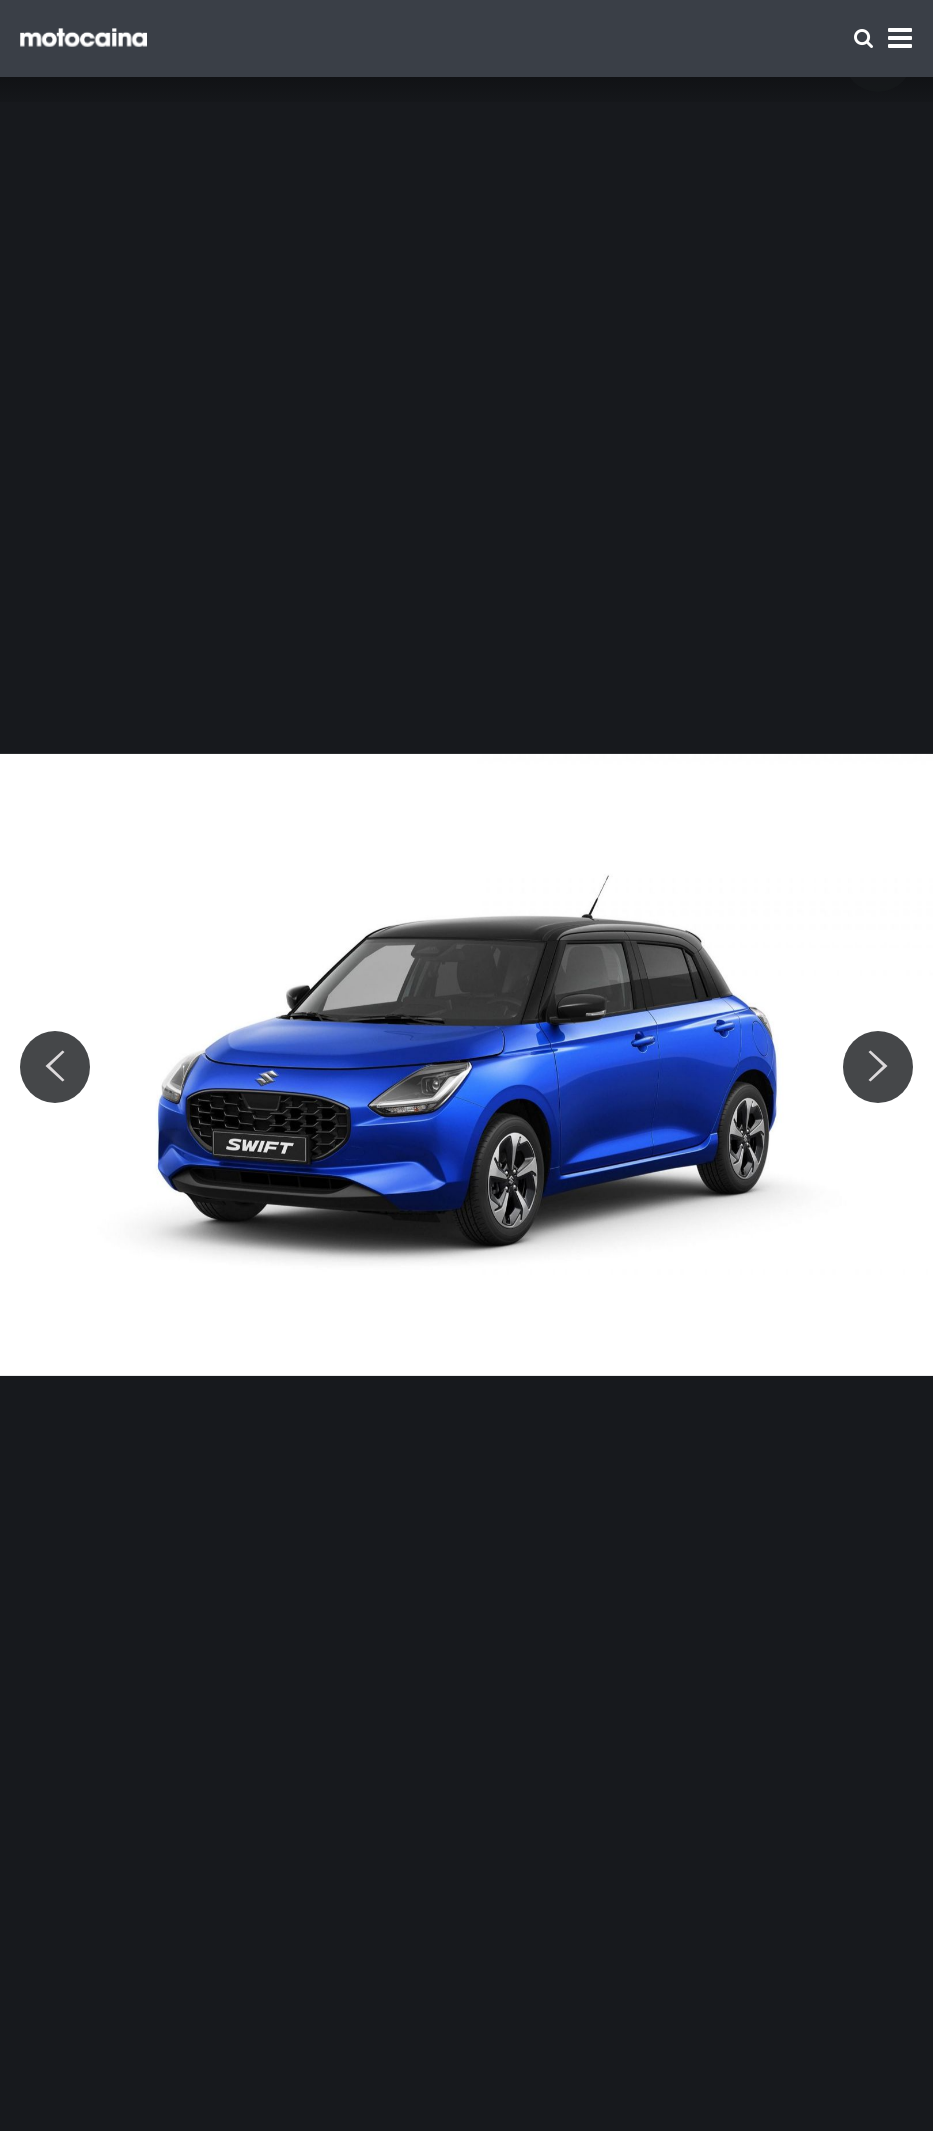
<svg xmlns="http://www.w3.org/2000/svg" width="933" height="2131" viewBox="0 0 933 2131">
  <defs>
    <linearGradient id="g1" gradientUnits="userSpaceOnUse" x1="467" y1="0" x2="467" y2="142"><stop offset="0" stop-color="#0a0b0d"/><stop offset="0.18" stop-color="#08090a"/><stop offset="0.8" stop-color="#17191d"/></linearGradient>
  </defs>
  <rect width="100%" height="100%" fill="#17191d"/>
  <rect x="0" y="77" width="933" height="25" fill="url(#g1)"/>
  <ellipse cx="878" cy="56" rx="35" ry="36" fill="#17191c" fill-opacity="0.8"/>
  <rect x="0" y="0" width="933" height="77" fill="#3a3f47"/>
  <image x="20" y="28" width="127" height="19" href="img1.png"/>
  <image x="854" y="29" width="19" height="19" href="img2.png"/>
  <image x="888" y="28" width="24" height="20" href="img3.png"/>
  <image x="0" y="753" width="933" height="623" href="img4.png"/>
  <ellipse cx="55" cy="1067" rx="35" ry="36" fill="#454749"/>
  <path d="M64.5 1052L50 1066L64.5 1080L62.5 1081.5L45.5 1066L62.5 1050.5Z" fill="#dddadc" fill-rule="evenodd"/>
  <ellipse cx="878" cy="1067" rx="35" ry="36" fill="#454749"/>
  <path d="M868.5 1052L870.5 1050.5L887.5 1066L870.5 1081.5L868.5 1080L883 1066Z" fill="#dddadc" fill-rule="evenodd"/>
</svg>
